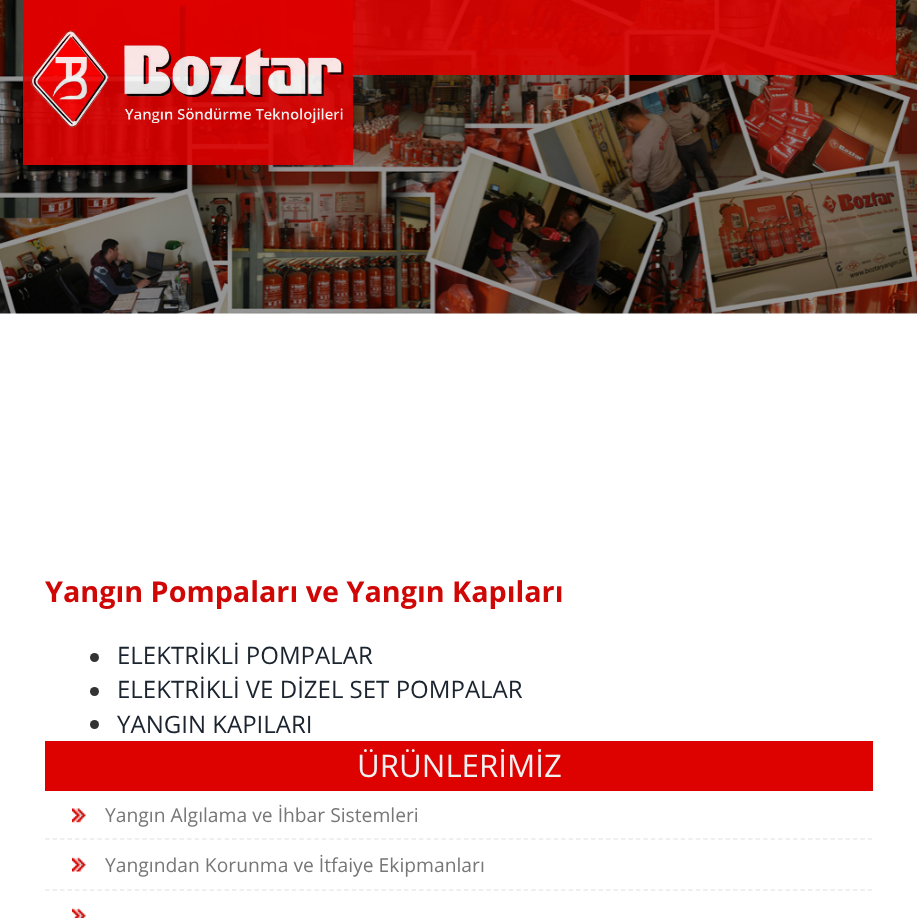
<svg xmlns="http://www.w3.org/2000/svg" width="917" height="918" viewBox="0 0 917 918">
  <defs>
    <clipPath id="clip1"><path d="M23 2H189V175H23ZM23 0H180V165H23Z" clip-rule="evenodd"/></clipPath>
    <filter id="blur1" x="-50%" y="-200%" width="200%" height="500%"><feGaussianBlur stdDeviation="1"/></filter>
  </defs>
  <rect width="100%" height="100%" fill="#ffffff"/>
  <image x="0" y="0" width="917" height="314" href="img1.png"/>
  <rect x="23" y="0" width="873" height="75" fill="#dd0200" fill-opacity="0.9"/>
  <g clip-path="url(#clip1)">
    <rect x="27" y="6" width="158" height="165" fill="#000000" fill-opacity="0.9" filter="url(#blur1)"/>
  </g>
  <image x="23" y="0" width="330" height="165" href="img2.png"/>
  <text x="45" y="602" font-family="Open Sans" font-size="28.75" font-weight="bold" fill="#cf0705">Yangın Pompaları ve Yangın Kapıları</text>
  <circle cx="94.5" cy="657.5" r="4.5" fill="#333333"/>
  <text x="117" y="664" font-family="Open Sans" font-size="24" fill="#1b242f">ELEKTRİKLİ POMPALAR</text>
  <circle cx="94.5" cy="691.5" r="4.5" fill="#333333"/>
  <text x="117" y="698" font-family="Open Sans" font-size="24" fill="#1b242f">ELEKTRİKLİ VE DİZEL SET POMPALAR</text>
  <circle cx="94.5" cy="724.5" r="4.5" fill="#333333"/>
  <text x="117" y="733" font-family="Open Sans" font-size="24" fill="#1b242f">YANGIN KAPILARI</text>
  <rect x="45" y="741" width="828" height="50" fill="#dd0200"/>
  <text x="357" y="777" font-family="Open Sans" font-size="31.25" fill="#f1f1f1">ÜRÜNLERİMİZ</text>
  <path d="M45 839H873" fill="none" stroke="#eaeaea" stroke-width="1.5" stroke-dasharray="4.5 2.98"/>
  <image x="72" y="808" width="14" height="15" href="img3.png"/>
  <text x="105" y="822" font-family="Open Sans" font-size="19.25" fill="#777777">Yangın Algılama ve İhbar Sistemleri</text>
  <path d="M45 890H873" fill="none" stroke="#eaeaea" stroke-width="1.5" stroke-dasharray="4.5 2.98"/>
  <image x="72" y="857" width="14" height="15" href="img4.png"/>
  <text x="105" y="872" font-family="Open Sans" font-size="19.25" fill="#777777">Yangından Korunma ve İtfaiye Ekipmanları</text>
  <image x="72" y="908" width="14" height="10" href="img5.png"/>
</svg>
